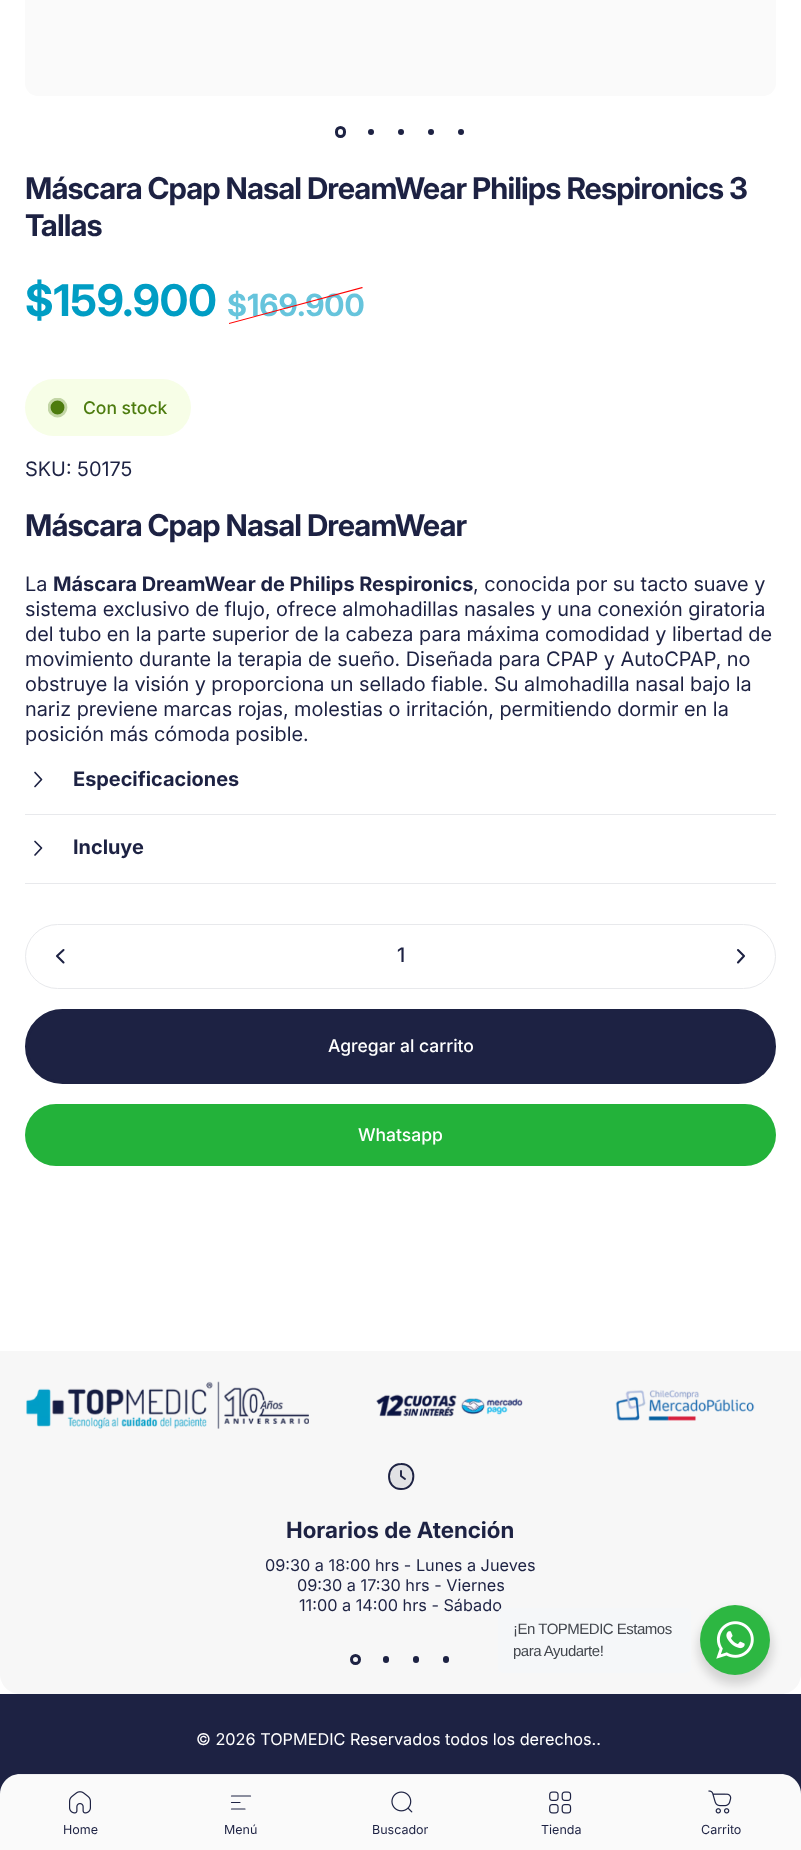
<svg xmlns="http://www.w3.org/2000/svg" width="801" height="1850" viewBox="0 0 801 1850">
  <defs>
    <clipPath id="clip1"><rect x="48" y="398" width="20" height="20"/></clipPath>
    <filter id="blur1" x="-50%" y="-200%" width="200%" height="500%"><feGaussianBlur stdDeviation="5"/></filter>
  </defs>
  <rect width="100%" height="100%" fill="#ffffff"/>
  <rect x="25" y="-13" width="751" height="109" rx="13" fill="#fafafa"/>
  <rect x="336.5" y="127.5" width="8" height="9" rx="4" fill="none" stroke="#1d2243" stroke-width="3"/>
  <circle cx="371" cy="132" r="3" fill="#1d2243"/>
  <circle cx="401" cy="132" r="3" fill="#1d2243"/>
  <circle cx="431" cy="132" r="3" fill="#1d2243"/>
  <circle cx="461" cy="132" r="3" fill="#1d2243"/>
  <text x="25" y="199" font-family="'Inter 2'" font-size="30" font-weight="bold" letter-spacing="-0.9" fill="#1d2243">Máscara Cpap Nasal DreamWear Philips Respironics 3</text>
  <text x="25" y="236" font-family="'Inter 2'" font-size="30" font-weight="bold" letter-spacing="-0.9" fill="#1d2243">Tallas</text>
  <text x="25" y="316" font-family="Inter" font-size="43.75" font-weight="bold" fill="#009dc4">$159.900</text>
  <text x="227" y="316" font-family="'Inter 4'" font-size="30.5" font-weight="bold" fill="#66c4dc">$169.900</text>
  <path d="M229 323L362 287L363 288L229 324Z" fill="#ff0000"/>
  <rect x="25" y="379" width="166" height="57" rx="28.5" fill="#f7fee7"/>
  <circle cx="57.5" cy="407.5" r="6" fill="#4d7c0f" stroke="#4d7c0f" stroke-width="1.9"/>
  <g clip-path="url(#clip1)">
    <circle cx="57.5" cy="407.5" r="8" fill="none" stroke="#4d7c0f" stroke-opacity="0.3" stroke-width="3.8"/>
  </g>
  <text x="83" y="414" font-family="Inter" font-size="17.5" font-weight="500" fill="#4d7c0f">Con stock</text>
  <text x="25" y="476" font-family="Inter" font-size="20" fill="#1d2243">SKU: 50175</text>
  <text x="25" y="536" font-family="'Inter 2'" font-size="30" font-weight="bold" letter-spacing="-0.9" fill="#1d2243">Máscara Cpap Nasal DreamWear</text>
  <text x="25" y="591" font-family="Inter" font-size="20" fill="#1d2243">La</text>
  <text x="53" y="591" font-family="'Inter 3'" font-size="20" font-weight="bold" fill="#1d2243">Máscara DreamWear de Philips Respironics</text>
  <text x="473" y="591" font-family="Inter" font-size="20" fill="#1d2243">, conocida por su tacto suave y</text>
  <text x="25" y="616" font-family="Inter" font-size="20" fill="#1d2243">sistema exclusivo de flujo, ofrece almohadillas nasales y una conexión giratoria</text>
  <text x="25" y="641" font-family="Inter" font-size="20" fill="#1d2243">del tubo en la parte superior de la cabeza para máxima comodidad y libertad de</text>
  <text x="25" y="666" font-family="Inter" font-size="20" fill="#1d2243">movimiento durante la terapia de sueño. Diseñada para CPAP y AutoCPAP, no</text>
  <text x="25" y="691" font-family="Inter" font-size="20" fill="#1d2243">obstruye la visión y proporciona un sellado fiable. Su almohadilla nasal bajo la</text>
  <text x="25" y="716" font-family="Inter" font-size="20" fill="#1d2243">nariz previene marcas rojas, molestias o irritación, permitiendo dormir en la</text>
  <text x="25" y="741" font-family="Inter" font-size="20" fill="#1d2243">posición más cómoda posible.</text>
  <rect x="25" y="814" width="751" height="1" fill="#e8e9ec"/>
  <path d="M35 772.5L41.5 779.5L35 786.5" fill="none" stroke="#1d2243" stroke-width="1.7" stroke-linecap="round" stroke-linejoin="round"/>
  <text x="73" y="786" font-family="'Inter 3'" font-size="20" font-weight="bold" fill="#1d2243">Especificaciones</text>
  <rect x="25" y="883" width="751" height="1" fill="#e8e9ec"/>
  <path d="M35 841.5L41.5 848L35 855" fill="none" stroke="#1d2243" stroke-width="1.7" stroke-linecap="round" stroke-linejoin="round"/>
  <text x="73" y="854" font-family="'Inter 3'" font-size="20" font-weight="bold" fill="#1d2243">Incluye</text>
  <rect x="25.5" y="924.5" width="750" height="64" rx="32" fill="none" stroke="#e8e9ec"/>
  <path d="M63.5 950L57 956L63.5 962.5" fill="none" stroke="#1d2243" stroke-width="2.1" stroke-linecap="round" stroke-linejoin="round"/>
  <text x="397" y="962" font-family="'Inter 2'" font-size="20" font-weight="500" fill="#1d2243">1</text>
  <path d="M738 950L744 956L738 962.5" fill="none" stroke="#1d2243" stroke-width="2.1" stroke-linecap="round" stroke-linejoin="round"/>
  <rect x="26.5" y="1010.5" width="748" height="72" rx="36" fill="#1d2243" stroke="#1d2243" stroke-width="3"/>
  <text x="328" y="1052" font-family="Inter" font-size="17.5" font-weight="500" fill="#ffffff">Agregar al carrito</text>
  <rect x="25" y="1104" width="751" height="62" rx="31" fill="#23b23a"/>
  <text x="358" y="1141" font-family="Inter" font-size="17.5" font-weight="500" fill="#ffffff">Whatsapp</text>
  <rect x="0" y="1351" width="801" height="92" fill="#f7f7f7"/>
  <image x="26" y="1381" width="729" height="48" href="img1.png"/>
  <path d="M0 1443H801V1674C801 1685 792 1694 781 1694H20C9 1694 0 1685 0 1674Z" fill="#f7f7f7"/>
  <circle cx="401.5" cy="1476.5" r="12.5" fill="#e1e2e5"/>
  <path d="M401 1471V1476L405 1479M401 1489C385 1489 385 1464 401 1464C417.5 1463.5 417.5 1489 401 1489Z" fill="none" stroke="#1d2243" stroke-width="1.9" stroke-linecap="round" stroke-linejoin="round"/>
  <text x="286" y="1538" font-family="'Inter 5'" font-size="22.5" font-weight="bold" fill="#1d2243">Horarios de Atención</text>
  <text x="265" y="1571" font-family="'Inter 2'" font-size="16.25" fill="#1d2243">09:30 a 18:00 hrs - Lunes a Jueves</text>
  <text x="297" y="1591" font-family="'Inter 2'" font-size="16.25" fill="#1d2243">09:30 a 17:30 hrs - Viernes</text>
  <text x="299" y="1611" font-family="'Inter 2'" font-size="16.25" fill="#1d2243">11:00 a 14:00 hrs - Sábado</text>
  <circle cx="355.5" cy="1659.5" r="4" fill="none" stroke="#1d2243" stroke-width="3"/>
  <rect x="383" y="1656" width="6" height="7" rx="3" fill="#1d2243"/>
  <rect x="413" y="1656" width="6" height="7" rx="3" fill="#1d2243"/>
  <rect x="443" y="1656" width="6" height="7" rx="3" fill="#1d2243"/>
  <rect x="0" y="1694" width="801" height="100" fill="#1d2243"/>
  <text x="196" y="1745" font-family="'Inter 2'" font-size="16.25" fill="#ffffff">© 2026 TOPMEDIC Reservados todos los derechos..</text>
  <rect x="698" y="1610" width="75" height="75" rx="37.5" fill="#000000" fill-opacity="0.14" filter="url(#blur1)"/>
  <rect x="498" y="1608" width="193" height="65" rx="5" fill="#f5f7f9"/>
  <text x="513" y="1634" font-family="Liberation Sans" font-size="15" letter-spacing="-0.5" fill="#43474e">¡En TOPMEDIC Estamos</text>
  <text x="513" y="1656" font-family="Liberation Sans" font-size="15" letter-spacing="-0.5" fill="#43474e">para Ayudarte!</text>
  <circle cx="735" cy="1640" r="35" fill="#2db742"/>
  <image x="716" y="1621" width="38" height="38" href="img2.png"/>
  <path d="M20 1774H781C792 1774 801 1783 801 1794V1850H0V1794C0 1783 9 1774 20 1774Z" fill="#fafafa"/>
  <rect x="10" y="1774" width="781" height="1" fill="#1d2243" fill-opacity="0.06"/>
  <image x="69" y="1791" width="22" height="23" href="img3.png"/>
  <text x="63" y="1834" font-family="'Inter 2'" font-size="12.5" fill="#1d2243">Home</text>
  <path d="M231.5 1796H250.5M231.5 1802.5H240M231.5 1809H245" fill="none" stroke="#1d2243" stroke-width="1.2" stroke-linecap="round" stroke-linejoin="round"/>
  <text x="224" y="1834" font-family="'Inter 2'" font-size="12.5" fill="#1d2243">Menú</text>
  <image x="391" y="1791" width="22" height="22" href="img4.png"/>
  <text x="372" y="1834" font-family="'Inter 2'" font-size="12.5" fill="#1d2243">Buscador</text>
  <image x="549" y="1791" width="23" height="23" href="img5.png"/>
  <text x="541" y="1834" font-family="'Inter 2'" font-size="12.5" fill="#1d2243">Tienda</text>
  <image x="708" y="1790" width="24" height="24" href="img6.png"/>
  <text x="701" y="1834" font-family="'Inter 2'" font-size="12.5" fill="#1d2243">Carrito</text>
</svg>
